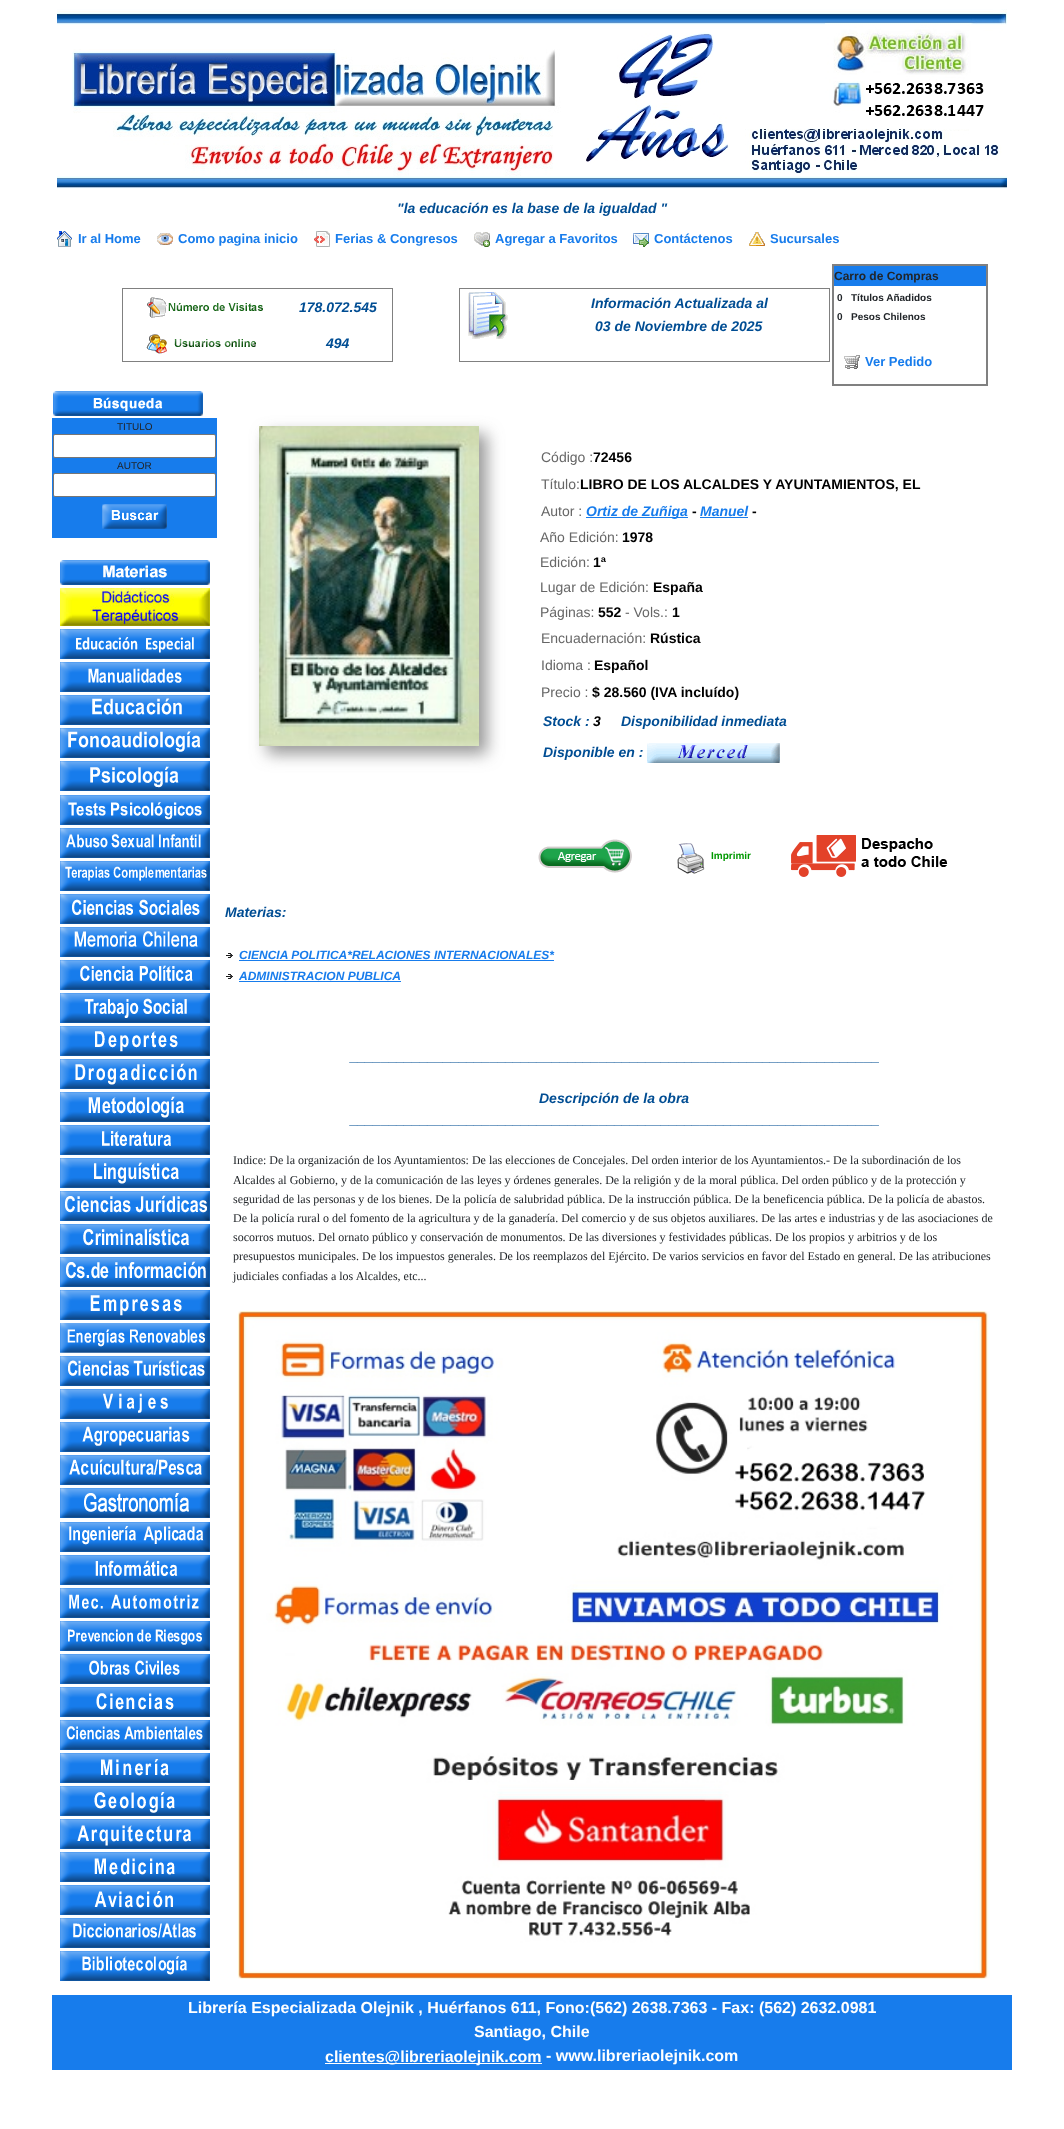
<svg xmlns="http://www.w3.org/2000/svg" width="1064" height="2129" viewBox="0 0 1064 2129">
  <defs>
    <filter id="blur1" x="-50%" y="-200%" width="200%" height="500%"><feGaussianBlur stdDeviation="8"/></filter>
  </defs>
  <rect width="100%" height="100%" fill="#ffffff"/>
  <image x="57" y="9" width="950" height="180" href="img1.png"/>
  <text x="397" y="213" font-family="Liberation Sans" font-size="14" font-weight="bold" font-style="italic" fill="#004d93">"la educación es la base de la igualdad "</text>
  <image x="57" y="231" width="15" height="16" href="img2.png"/>
  <text x="78" y="243" font-family="Liberation Sans" font-size="13" font-weight="bold" fill="#177cec">Ir al Home</text>
  <image x="157" y="233" width="16" height="12" href="img3.png"/>
  <text x="178" y="243" font-family="Liberation Sans" font-size="13" font-weight="bold" fill="#177cec">Como pagina inicio</text>
  <image x="314" y="231" width="16" height="16" href="img4.png"/>
  <text x="335" y="243" font-family="Liberation Sans" font-size="13" font-weight="bold" fill="#177cec">Ferias &amp; Congresos</text>
  <image x="474" y="232" width="16" height="15" href="img5.png"/>
  <text x="495" y="243" font-family="Liberation Sans" font-size="13" font-weight="bold" fill="#177cec">Agregar a Favoritos</text>
  <image x="633" y="233" width="16" height="14" href="img6.png"/>
  <text x="654" y="243" font-family="Liberation Sans" font-size="13" font-weight="bold" fill="#177cec">Contáctenos</text>
  <image x="749" y="232" width="16" height="14" href="img7.png"/>
  <text x="770" y="243" font-family="Liberation Sans" font-size="13" font-weight="bold" fill="#177cec">Sucursales</text>
  <rect x="122" y="288" width="271" height="1" fill="#808080"/>
  <rect x="392" y="288" width="1" height="74" fill="#808080"/>
  <rect x="122" y="361" width="271" height="1" fill="#808080"/>
  <rect x="122" y="288" width="1" height="74" fill="#808080"/>
  <image x="147" y="297" width="116" height="21" href="img8.png"/>
  <text x="299" y="312" font-family="Liberation Sans" font-size="14" font-weight="bold" font-style="italic" fill="#004d93">178.072.545</text>
  <image x="146" y="334" width="110" height="20" href="img9.png"/>
  <text x="326" y="348" font-family="Liberation Sans" font-size="14" font-weight="bold" font-style="italic" fill="#004d93">494</text>
  <rect x="459" y="288" width="371" height="1" fill="#808080"/>
  <rect x="829" y="288" width="1" height="74" fill="#808080"/>
  <rect x="459" y="361" width="371" height="1" fill="#808080"/>
  <rect x="459" y="288" width="1" height="74" fill="#808080"/>
  <image x="468" y="292" width="40" height="47" href="img10.png"/>
  <text x="591" y="308" font-family="Liberation Sans" font-size="14" font-weight="bold" font-style="italic" fill="#004d93">Información Actualizada al</text>
  <text x="595" y="331" font-family="Liberation Sans" font-size="14" font-weight="bold" font-style="italic" fill="#004d93">03 de Noviembre de 2025</text>
  <rect x="832" y="264" width="156" height="2" fill="#808080"/>
  <rect x="986" y="264" width="2" height="122" fill="#808080"/>
  <rect x="832" y="384" width="156" height="2" fill="#808080"/>
  <rect x="832" y="264" width="2" height="122" fill="#808080"/>
  <rect x="834" y="266" width="152" height="20" fill="#177cec"/>
  <text x="834" y="280" font-family="Liberation Sans" font-size="12" font-weight="bold" fill="#212529">Carro de Compras</text>
  <text x="837" y="301" font-family="Liberation Sans" font-size="10" font-weight="bold" fill="#212529">0</text>
  <text x="851" y="301" font-family="Liberation Sans" font-size="10" font-weight="bold" fill="#212529">Títulos Añadidos</text>
  <text x="837" y="320" font-family="Liberation Sans" font-size="10" font-weight="bold" fill="#212529">0</text>
  <text x="851" y="320" font-family="Liberation Sans" font-size="10" font-weight="bold" fill="#212529">Pesos Chilenos</text>
  <image x="844" y="355" width="16" height="14" href="img11.png"/>
  <text x="865" y="366" font-family="Liberation Sans" font-size="13" font-weight="bold" fill="#177cec">Ver Pedido</text>
  <image x="53" y="391" width="150" height="25" href="img12.png"/>
  <rect x="52" y="418" width="165" height="120" fill="#177cec"/>
  <text x="117" y="430" font-family="Liberation Sans" font-size="10" fill="#212529">TITULO</text>
  <rect x="53.5" y="434.5" width="162" height="23" rx="1.5" fill="#ffffff" stroke="#767676"/>
  <text x="117" y="469" font-family="Liberation Sans" font-size="10" fill="#212529">AUTOR</text>
  <rect x="53.5" y="473.5" width="162" height="23" rx="1.5" fill="#ffffff" stroke="#767676"/>
  <image x="102" y="504" width="65" height="25" href="img13.png"/>
  <image x="60" y="560" width="150" height="25" href="img14.png"/>
  <image x="60" y="588" width="150" height="38" href="img15.png"/>
  <image x="60" y="629" width="150" height="30" href="img16.png"/>
  <image x="60" y="662" width="150" height="30" href="img17.png"/>
  <image x="60" y="695" width="150" height="30" href="img18.png"/>
  <image x="60" y="728" width="150" height="30" href="img19.png"/>
  <image x="60" y="761" width="150" height="30" href="img20.png"/>
  <image x="60" y="795" width="150" height="30" href="img21.png"/>
  <image x="60" y="828" width="150" height="30" href="img22.png"/>
  <image x="60" y="861" width="150" height="30" href="img23.png"/>
  <image x="60" y="894" width="150" height="30" href="img24.png"/>
  <image x="60" y="927" width="150" height="30" href="img25.png"/>
  <image x="60" y="960" width="150" height="30" href="img26.png"/>
  <image x="60" y="993" width="150" height="30" href="img27.png"/>
  <image x="60" y="1026" width="150" height="30" href="img28.png"/>
  <image x="60" y="1059" width="150" height="30" href="img29.png"/>
  <image x="60" y="1092" width="150" height="30" href="img30.png"/>
  <image x="60" y="1125" width="150" height="30" href="img31.png"/>
  <image x="60" y="1158" width="150" height="30" href="img32.png"/>
  <image x="60" y="1191" width="150" height="30" href="img33.png"/>
  <image x="60" y="1224" width="150" height="30" href="img34.png"/>
  <image x="60" y="1257" width="150" height="30" href="img35.png"/>
  <image x="60" y="1290" width="150" height="30" href="img36.png"/>
  <image x="60" y="1323" width="150" height="30" href="img37.png"/>
  <image x="60" y="1356" width="150" height="30" href="img38.png"/>
  <image x="60" y="1389" width="150" height="30" href="img39.png"/>
  <image x="60" y="1422" width="150" height="30" href="img40.png"/>
  <image x="60" y="1455" width="150" height="30" href="img41.png"/>
  <image x="60" y="1488" width="150" height="30" href="img42.png"/>
  <image x="60" y="1522" width="150" height="30" href="img43.png"/>
  <image x="60" y="1555" width="150" height="30" href="img44.png"/>
  <image x="60" y="1588" width="150" height="30" href="img45.png"/>
  <image x="60" y="1621" width="150" height="30" href="img46.png"/>
  <image x="60" y="1654" width="150" height="30" href="img47.png"/>
  <image x="60" y="1687" width="150" height="30" href="img48.png"/>
  <image x="60" y="1720" width="150" height="30" href="img49.png"/>
  <image x="60" y="1753" width="150" height="30" href="img50.png"/>
  <image x="60" y="1786" width="150" height="30" href="img51.png"/>
  <image x="60" y="1819" width="150" height="30" href="img52.png"/>
  <image x="60" y="1852" width="150" height="30" href="img53.png"/>
  <image x="60" y="1885" width="150" height="30" href="img54.png"/>
  <image x="60" y="1918" width="150" height="30" href="img55.png"/>
  <image x="60" y="1951" width="150" height="30" href="img56.png"/>
  <rect x="267" y="434" width="220" height="320" fill="#999999" filter="url(#blur1)"/>
  <image x="259" y="426" width="220" height="320" href="img57.png"/>
  <text x="541" y="462" font-family="Liberation Sans" font-size="14" fill="#666666">Código :</text>
  <text x="593" y="462" font-family="Liberation Sans" font-size="14" font-weight="bold" fill="#000000">72456</text>
  <text x="541" y="489" font-family="Liberation Sans" font-size="14" fill="#666666">Título:</text>
  <text x="580" y="489" font-family="Liberation Sans" font-size="14" font-weight="bold" fill="#000000">LIBRO DE LOS ALCALDES Y AYUNTAMIENTOS, EL</text>
  <text x="541" y="516" font-family="Liberation Sans" font-size="14" fill="#666666">Autor :</text>
  <rect x="586" y="517" width="102" height="1" fill="#177cec"/>
  <text x="586" y="516" font-family="Liberation Sans" font-size="14" font-weight="bold" font-style="italic" fill="#177cec">Ortiz de Zuñiga</text>
  <text x="692" y="516" font-family="Liberation Sans" font-size="14" font-weight="bold" fill="#000000">-</text>
  <text x="700" y="516" font-family="Liberation Sans" font-size="14" font-weight="bold" font-style="italic" fill="#177cec">Manuel</text>
  <rect x="700" y="517" width="48" height="1" fill="#177cec"/>
  <text x="752" y="516" font-family="Liberation Sans" font-size="14" font-weight="bold" fill="#000000">-</text>
  <text x="540" y="542" font-family="Liberation Sans" font-size="14" fill="#666666">Año Edición:</text>
  <text x="622" y="542" font-family="Liberation Sans" font-size="14" font-weight="bold" fill="#000000">1978</text>
  <text x="540" y="567" font-family="Liberation Sans" font-size="14" fill="#666666">Edición:</text>
  <text x="593" y="567" font-family="Liberation Sans" font-size="14" font-weight="bold" fill="#000000">1ª</text>
  <text x="540" y="592" font-family="Liberation Sans" font-size="14" fill="#666666">Lugar de Edición:</text>
  <text x="653" y="592" font-family="Liberation Sans" font-size="14" font-weight="bold" fill="#000000">España</text>
  <text x="540" y="617" font-family="Liberation Sans" font-size="14" fill="#666666">Páginas:</text>
  <text x="598" y="617" font-family="Liberation Sans" font-size="14" font-weight="bold" fill="#000000">552</text>
  <text x="625" y="617" font-family="Liberation Sans" font-size="14" fill="#666666">- Vols.:</text>
  <text x="672" y="617" font-family="Liberation Sans" font-size="14" font-weight="bold" fill="#000000">1</text>
  <text x="541" y="643" font-family="Liberation Sans" font-size="14" fill="#666666">Encuadernación:</text>
  <text x="650" y="643" font-family="Liberation Sans" font-size="14" font-weight="bold" fill="#000000">Rústica</text>
  <text x="541" y="670" font-family="Liberation Sans" font-size="14" fill="#666666">Idioma :</text>
  <text x="594" y="670" font-family="Liberation Sans" font-size="14" font-weight="bold" fill="#000000">Español</text>
  <text x="541" y="697" font-family="Liberation Sans" font-size="14" fill="#666666">Precio :</text>
  <text x="592" y="697" font-family="Liberation Sans" font-size="14" font-weight="bold" fill="#000000">$ 28.560 (IVA incluído)</text>
  <text x="543" y="726" font-family="Liberation Sans" font-size="14" font-weight="bold" font-style="italic" fill="#004d93">Stock :</text>
  <text x="593" y="726" font-family="Liberation Sans" font-size="14" font-weight="bold" font-style="italic" fill="#000000">3</text>
  <text x="621" y="726" font-family="Liberation Sans" font-size="14" font-weight="bold" font-style="italic" fill="#004d93">Disponibilidad inmediata</text>
  <text x="543" y="757" font-family="Liberation Sans" font-size="14" font-weight="bold" font-style="italic" fill="#004d93">Disponible en :</text>
  <image x="647" y="743" width="133" height="20" href="img58.png"/>
  <image x="538" y="839" width="94" height="34" href="img59.png"/>
  <image x="677" y="843" width="28" height="31" href="img60.png"/>
  <text x="711" y="859" font-family="Liberation Sans" font-size="10" font-weight="bold" fill="#009900">Imprimir</text>
  <image x="791" y="835" width="157" height="42" href="img61.png"/>
  <text x="225" y="917" font-family="Liberation Sans" font-size="14" font-weight="bold" font-style="italic" fill="#004d93">Materias:</text>
  <image x="226" y="953" width="7" height="5" href="img62.png"/>
  <text x="239" y="959" font-family="Liberation Sans" font-size="12" font-weight="bold" font-style="italic" fill="#177cec">CIENCIA POLITICA*RELACIONES INTERNACIONALES*</text>
  <rect x="239" y="960" width="315" height="1" fill="#177cec"/>
  <image x="226" y="974" width="7" height="5" href="img62.png"/>
  <text x="239" y="980" font-family="Liberation Sans" font-size="12" font-weight="bold" font-style="italic" fill="#177cec">ADMINISTRACION PUBLICA</text>
  <rect x="239" y="981" width="162" height="1" fill="#177cec"/>
  <text x="350" y="1061" font-family="Liberation Sans" font-size="14" font-weight="bold" font-style="italic" fill="#004d93">____________________________________________________________________</text>
  <text x="539" y="1103" font-family="Liberation Sans" font-size="14" font-weight="bold" font-style="italic" fill="#004d93">Descripción de la obra</text>
  <text x="350" y="1124" font-family="Liberation Sans" font-size="14" font-weight="bold" font-style="italic" fill="#004d93">____________________________________________________________________</text>
  <text x="233" y="1164" font-family="Liberation Serif" font-size="12" fill="#212529">Indice: De la organización de los Ayuntamientos: De las elecciones de Concejales. Del orden interior de los Ayuntamientos.- De la subordinación de los</text>
  <text x="233" y="1184" font-family="Liberation Serif" font-size="12" fill="#212529">Alcaldes al Gobierno, y de la comunicación de las leyes y órdenes generales. De la religión y de la moral pública. Del orden público y de la protección y</text>
  <text x="233" y="1203" font-family="Liberation Serif" font-size="12" fill="#212529">seguridad de las personas y de los bienes. De la policía de salubridad pública. De la instrucción pública. De la beneficencia pública. De la policía de abastos.</text>
  <text x="233" y="1222" font-family="Liberation Serif" font-size="12" fill="#212529">De la policía rural o del fomento de la agricultura y de la ganadería. Del comercio y de sus objetos auxiliares. De las artes e industrias y de las asociaciones de</text>
  <text x="233" y="1241" font-family="Liberation Serif" font-size="12" fill="#212529">socorros mutuos. Del ornato público y conservación de monumentos. De las diversiones y festividades públicas. De los propios y arbitrios y de los</text>
  <text x="233" y="1260" font-family="Liberation Serif" font-size="12" fill="#212529">presupuestos municipales. De los impuestos generales. De los reemplazos del Ejército. De varios servicios en favor del Estado en general. De las atribuciones</text>
  <text x="233" y="1280" font-family="Liberation Serif" font-size="12" fill="#212529">judiciales confiadas a los Alcaldes, etc...</text>
  <image x="238" y="1311" width="752" height="668" href="img63.png"/>
  <rect x="52" y="1995" width="960" height="75" fill="#177cec"/>
  <text x="188" y="2013" font-family="Liberation Sans" font-size="16" font-weight="bold" fill="#ffffff">Librería Especializada Olejnik , Huérfanos 611, Fono:(562) 2638.7363 - Fax: (562) 2632.0981</text>
  <text x="474" y="2037" font-family="Liberation Sans" font-size="16" font-weight="bold" fill="#ffffff">Santiago, Chile</text>
  <rect x="325" y="2063" width="217" height="1" fill="#ffffff"/>
  <text x="325" y="2062" font-family="Liberation Sans" font-size="16" font-weight="bold" fill="#ffffff">clientes@libreriaolejnik.com</text>
  <text x="546" y="2061" font-family="Liberation Sans" font-size="16" font-weight="bold" fill="#ffffff">- www.libreriaolejnik.com</text>
</svg>
